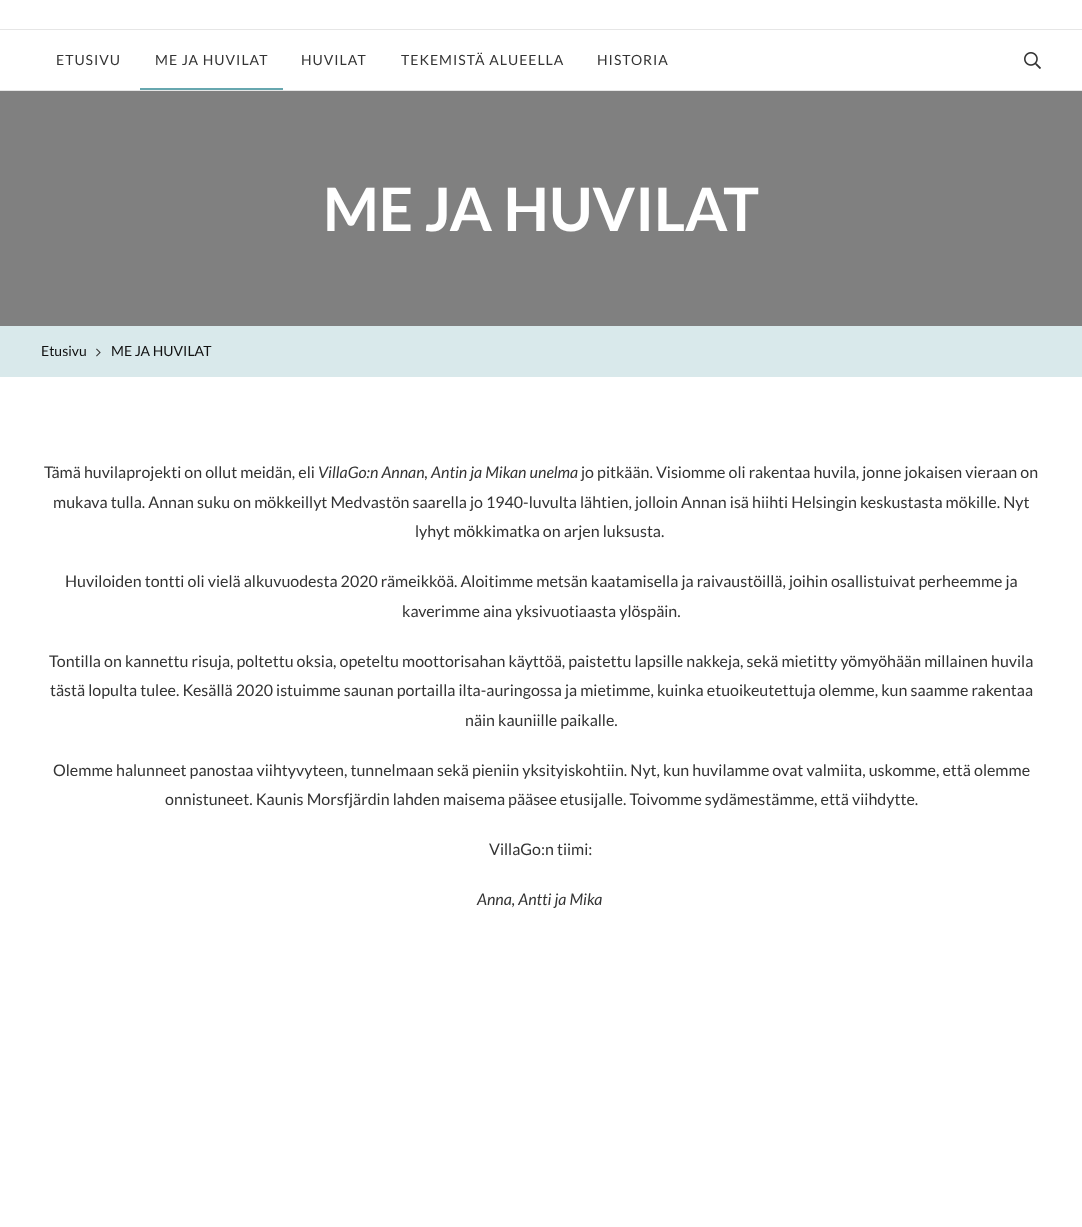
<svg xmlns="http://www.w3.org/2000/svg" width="1082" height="1227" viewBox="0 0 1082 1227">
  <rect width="100%" height="100%" fill="#ffffff"/>
  <rect x="0" y="90" width="1082" height="1" fill="#e6e6e6"/>
  <rect x="0" y="29" width="1082" height="1" fill="#e6e6e6"/>
  <text x="56" y="65" font-family="Lato" font-size="14" letter-spacing="1" fill="#343434">ETUSIVU</text>
  <text x="155" y="65" font-family="Lato" font-size="14" letter-spacing="1" fill="#343434">ME JA HUVILAT</text>
  <rect x="140" y="88" width="143" height="2" fill="#67a7af"/>
  <text x="301" y="65" font-family="Lato" font-size="14" letter-spacing="1" fill="#343434">HUVILAT</text>
  <text x="401" y="65" font-family="Lato" font-size="14" letter-spacing="1" fill="#343434">TEKEMISTÄ ALUEELLA</text>
  <text x="597" y="65" font-family="Lato" font-size="14" letter-spacing="1" fill="#343434">HISTORIA</text>
  <image x="1024" y="52" width="17" height="17" href="img1.png"/>
  <rect x="0" y="91" width="1082" height="235" fill="#808080"/>
  <text x="323" y="231" font-family="Lato" font-size="60" font-weight="bold" fill="#ffffff">ME JA HUVILAT</text>
  <rect x="0" y="326" width="1082" height="51" fill="#d9e9eb"/>
  <text x="41" y="356" font-family="Lato" font-size="14" fill="#111111">Etusivu</text>
  <image x="96" y="348" width="5" height="9" href="img2.png"/>
  <text x="111" y="356" font-family="Lato" font-size="14" fill="#111111">ME JA HUVILAT</text>
  <text x="44" y="478" font-family="Lato" font-size="16" fill="#343434">Tämä huvilaprojekti on ollut meidän, eli</text>
  <text x="318" y="478" font-family="Lato" font-size="16" font-style="italic" fill="#343434">VillaGo:n Annan, Antin ja Mikan unelma</text>
  <text x="581" y="478" font-family="Lato" font-size="16" fill="#343434">jo pitkään. Visiomme oli rakentaa huvila, jonne jokaisen vieraan on</text>
  <text x="53" y="508" font-family="Lato" font-size="16" fill="#343434">mukava tulla. Annan suku on mökkeillyt Medvastön saarella jo 1940-luvulta lähtien, jolloin Annan isä hiihti Helsingin keskustasta mökille. Nyt</text>
  <text x="415" y="537" font-family="Lato" font-size="16" fill="#343434">lyhyt mökkimatka on arjen luksusta.</text>
  <text x="65" y="587" font-family="Lato" font-size="16" fill="#343434">Huviloiden tontti oli vielä alkuvuodesta 2020 rämeikköä. Aloitimme metsän kaatamisella ja raivaustöillä, joihin osallistuivat perheemme ja</text>
  <text x="402" y="617" font-family="Lato" font-size="16" fill="#343434">kaverimme aina yksivuotiaasta ylöspäin.</text>
  <text x="49" y="667" font-family="Lato" font-size="16" fill="#343434">Tontilla on kannettu risuja, poltettu oksia, opeteltu moottorisahan käyttöä, paistettu lapsille nakkeja, sekä mietitty yömyöhään millainen huvila</text>
  <text x="50" y="696" font-family="Lato" font-size="16" fill="#343434">tästä lopulta tulee. Kesällä 2020 istuimme saunan portailla ilta-auringossa ja mietimme, kuinka etuoikeutettuja olemme, kun saamme rakentaa</text>
  <text x="465" y="726" font-family="Lato" font-size="16" fill="#343434">näin kauniille paikalle.</text>
  <text x="53" y="776" font-family="Lato" font-size="16" fill="#343434">Olemme halunneet panostaa viihtyvyteen, tunnelmaan sekä pieniin yksityiskohtiin. Nyt, kun huvilamme ovat valmiita, uskomme, että olemme</text>
  <text x="165" y="805" font-family="Lato" font-size="16" fill="#343434">onnistuneet. Kaunis Morsfjärdin lahden maisema pääsee etusijalle. Toivomme sydämestämme, että viihdytte.</text>
  <text x="489" y="855" font-family="Lato" font-size="16" fill="#343434">VillaGo:n tiimi:</text>
  <text x="477" y="905" font-family="Lato" font-size="16" font-style="italic" fill="#343434">Anna, Antti ja Mika</text>
</svg>
